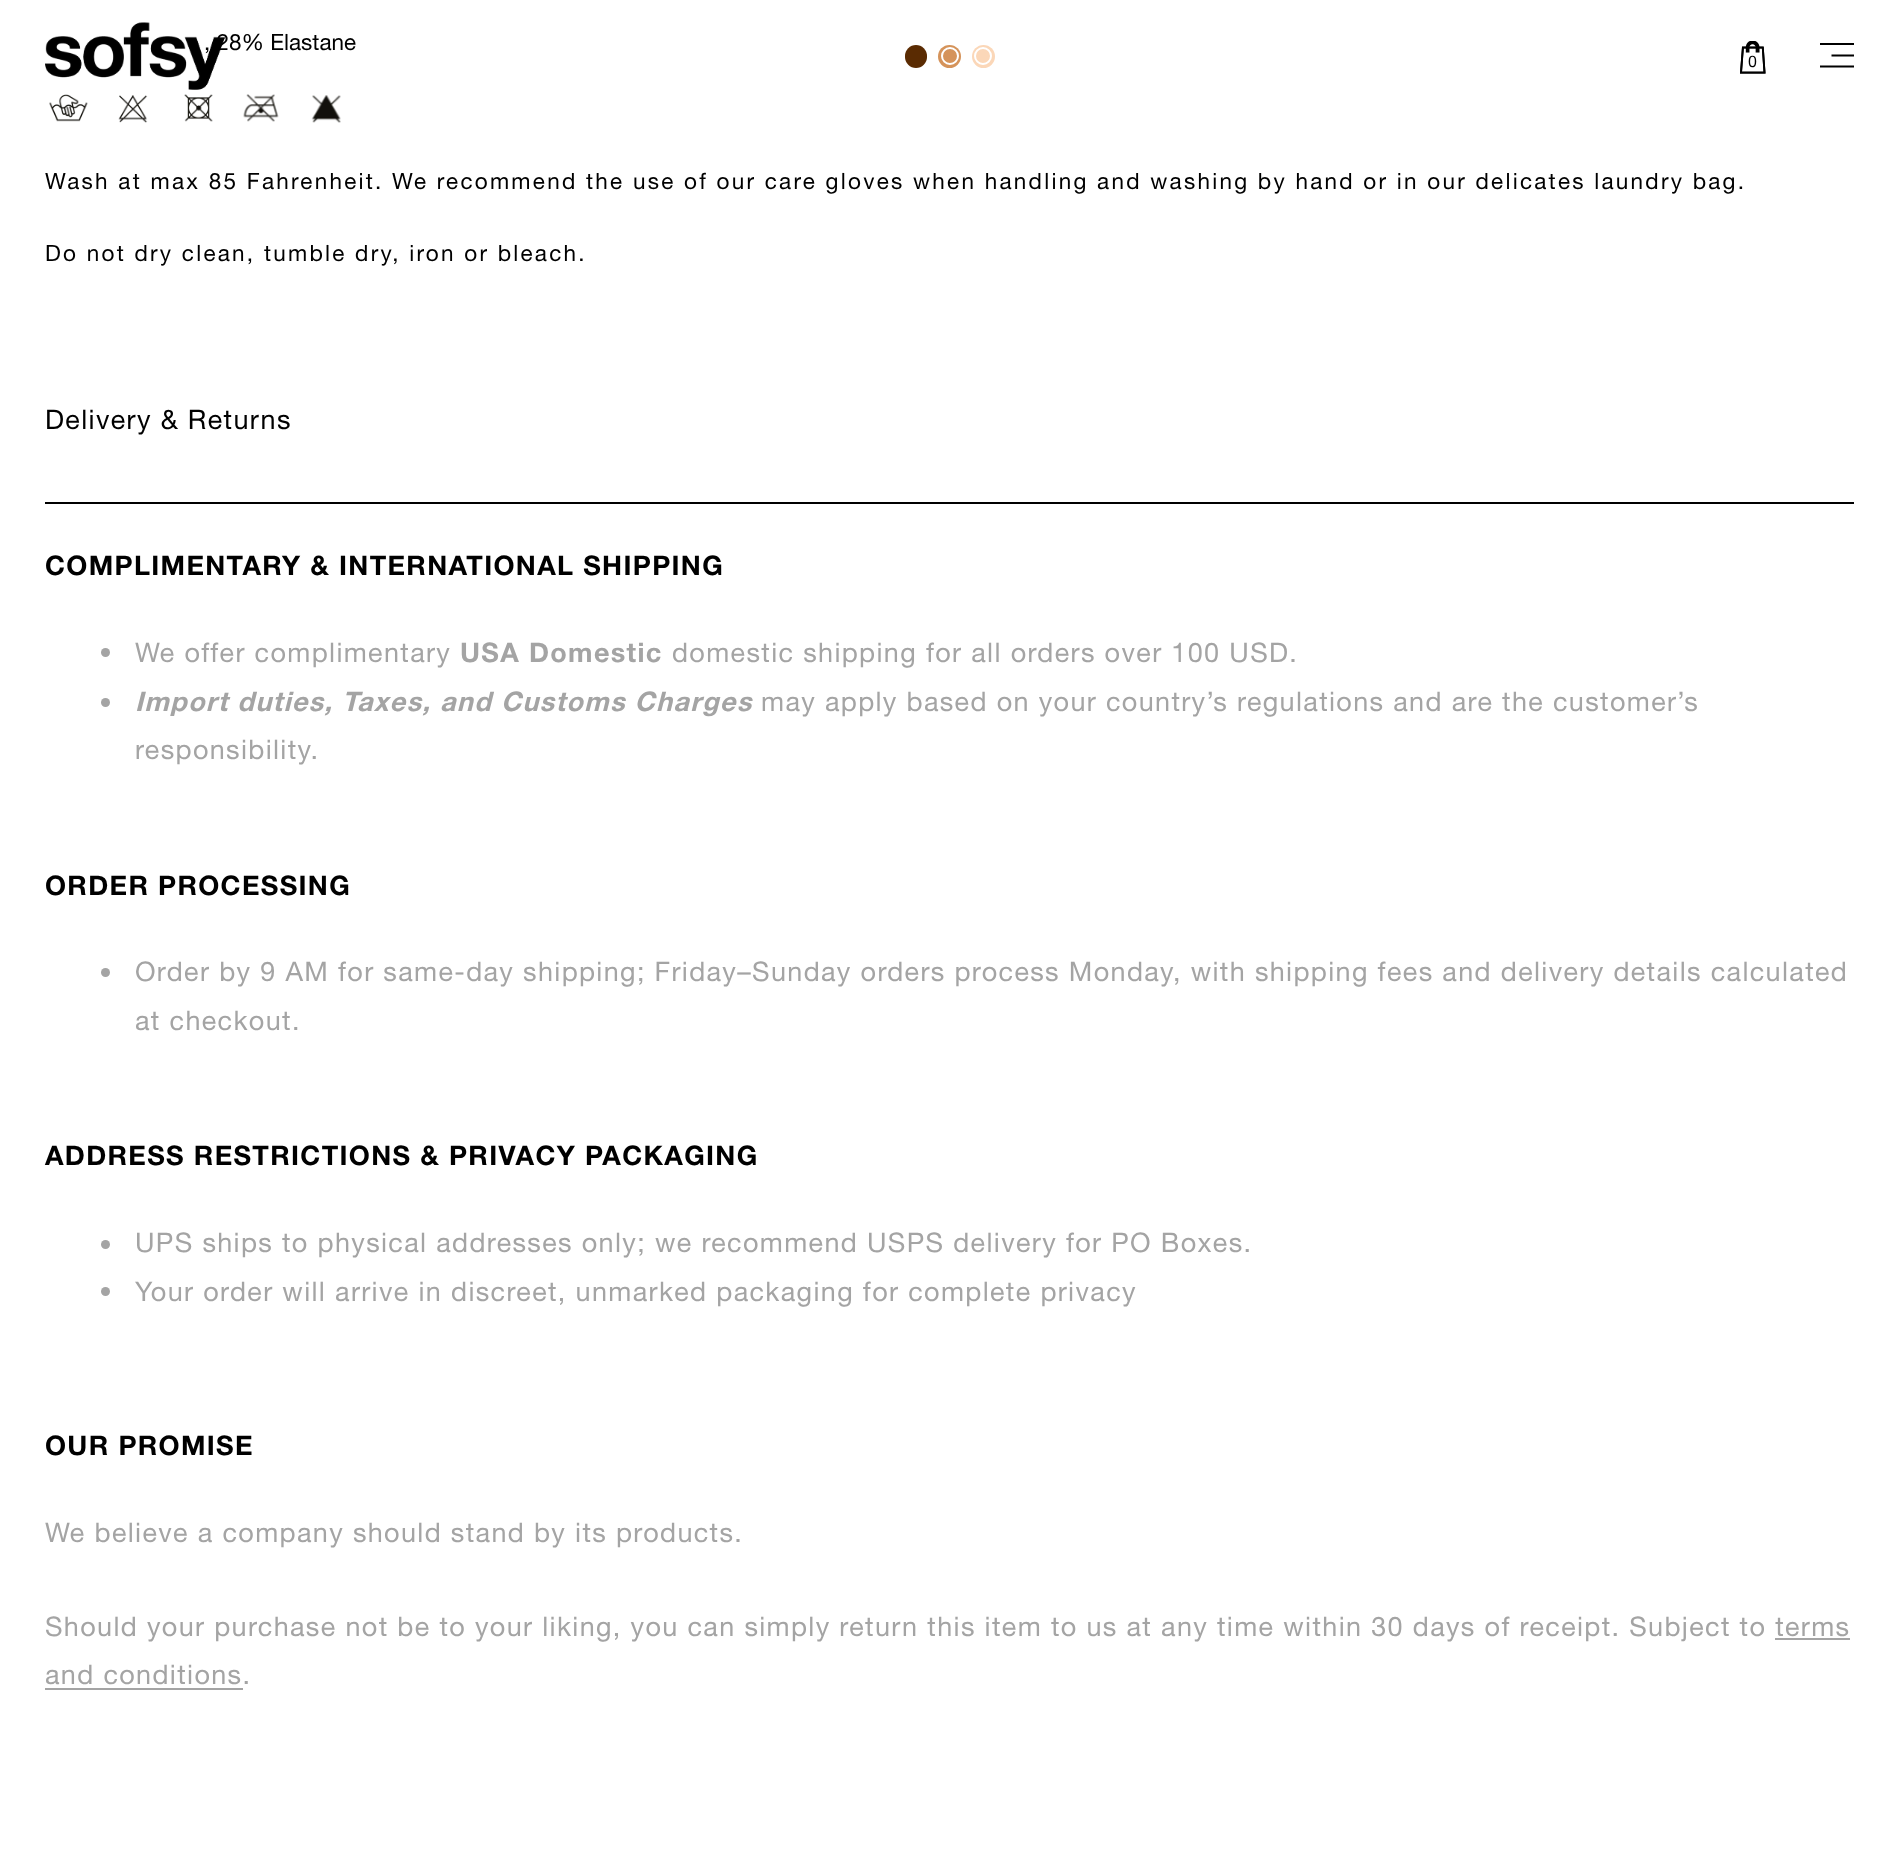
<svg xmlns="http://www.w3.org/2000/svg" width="1899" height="1872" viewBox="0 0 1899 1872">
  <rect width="100%" height="100%" fill="#ffffff"/>
  <text x="204" y="50" font-family="Helvetica Neue" font-size="22.5" fill="#000000">, 28% Elastane</text>
  <image x="49" y="94" width="39" height="28" href="img1.png"/>
  <image x="118" y="95" width="30" height="28" href="img2.png"/>
  <image x="184" y="94" width="29" height="28" href="img3.png"/>
  <image x="243" y="94" width="36" height="28" href="img4.png"/>
  <image x="311" y="95" width="30" height="28" href="img5.png"/>
  <text x="45" y="189" font-family="Helvetica Neue" font-size="22.5" letter-spacing="2.25" fill="#000000">Wash at max 85 Fahrenheit. We recommend the use of our care gloves when handling and washing by hand or in our delicates laundry bag.</text>
  <text x="45" y="261" font-family="Helvetica Neue" font-size="22.5" letter-spacing="2.25" fill="#000000">Do not dry clean, tumble dry, iron or bleach.</text>
  <rect x="45" y="502" width="1809" height="2" fill="#000000"/>
  <text x="45" y="429" font-family="Helvetica Neue" font-size="27" letter-spacing="1.35" fill="#000000">Delivery &amp; Returns</text>
  <text x="45" y="575" font-family="Helvetica Neue" font-size="27" font-weight="bold" letter-spacing="1.35" fill="#000000">COMPLIMENTARY &amp; INTERNATIONAL SHIPPING</text>
  <circle cx="105.5" cy="652.5" r="4.5" fill="#a4a4a4"/>
  <text x="135" y="662" font-family="Helvetica Neue" font-size="27" letter-spacing="1.35" fill="#a4a4a4">We offer complimentary</text>
  <text x="460" y="662" font-family="Helvetica Neue" font-size="27" font-weight="bold" letter-spacing="1.35" fill="#a4a4a4">USA Domestic</text>
  <text x="672" y="662" font-family="Helvetica Neue" font-size="27" letter-spacing="1.35" fill="#a4a4a4">domestic shipping for all orders over 100 USD.</text>
  <circle cx="105.5" cy="702.5" r="4.5" fill="#a4a4a4"/>
  <text x="135" y="711" font-family="Helvetica Neue" font-size="27" font-weight="bold" font-style="italic" letter-spacing="1.35" fill="#a4a4a4">Import duties, Taxes, and Customs Charges</text>
  <text x="761" y="711" font-family="Helvetica Neue" font-size="27" letter-spacing="1.35" fill="#a4a4a4">may apply based on your country’s regulations and are the customer’s</text>
  <text x="135" y="759" font-family="Helvetica Neue" font-size="27" letter-spacing="1.35" fill="#a4a4a4">responsibility.</text>
  <text x="45" y="895" font-family="Helvetica Neue" font-size="27" font-weight="bold" letter-spacing="1.35" fill="#000000">ORDER PROCESSING</text>
  <circle cx="105.5" cy="972.5" r="4.5" fill="#a4a4a4"/>
  <text x="135" y="981" font-family="Helvetica Neue" font-size="27" letter-spacing="1.35" fill="#a4a4a4">Order by 9 AM for same-day shipping; Friday–Sunday orders process Monday, with shipping fees and delivery details calculated</text>
  <text x="135" y="1030" font-family="Helvetica Neue" font-size="27" letter-spacing="1.35" fill="#a4a4a4">at checkout.</text>
  <text x="45" y="1165" font-family="Helvetica Neue" font-size="27" font-weight="bold" letter-spacing="1.35" fill="#000000">ADDRESS RESTRICTIONS &amp; PRIVACY PACKAGING</text>
  <circle cx="105.5" cy="1244.5" r="4.5" fill="#a4a4a4"/>
  <text x="135" y="1252" font-family="Helvetica Neue" font-size="27" letter-spacing="1.35" fill="#a4a4a4">UPS ships to physical addresses only; we recommend USPS delivery for PO Boxes.</text>
  <circle cx="105.5" cy="1291.5" r="4.5" fill="#a4a4a4"/>
  <text x="135" y="1301" font-family="Helvetica Neue" font-size="27" letter-spacing="1.35" fill="#a4a4a4">Your order will arrive in discreet, unmarked packaging for complete privacy</text>
  <text x="45" y="1455" font-family="Helvetica Neue" font-size="27" font-weight="bold" letter-spacing="1.35" fill="#000000">OUR PROMISE</text>
  <text x="45" y="1542" font-family="Helvetica Neue" font-size="27" letter-spacing="1.35" fill="#a4a4a4">We believe a company should stand by its products.</text>
  <text x="45" y="1636" font-family="Helvetica Neue" font-size="27" letter-spacing="1.35" fill="#a4a4a4">Should your purchase not be to your liking, you can simply return this item to us at any time within 30 days of receipt. Subject to terms</text>
  <text x="45" y="1684" font-family="Helvetica Neue" font-size="27" letter-spacing="1.35" fill="#a4a4a4">and conditions.</text>
  <rect x="1775" y="1638" width="75" height="2" fill="#a4a4a4"/>
  <rect x="45" y="1688" width="198" height="2" fill="#a4a4a4"/>
  <image x="45" y="22" width="180" height="68" href="img6.png"/>
  <rect x="905" y="45" width="22" height="23" rx="11" fill="#5a2b02"/>
  <circle cx="949.5" cy="56.5" r="11.5" fill="#d5935a"/>
  <circle cx="950" cy="56" r="8" fill="none" stroke="#ffffff" stroke-width="2"/>
  <circle cx="983.5" cy="56.5" r="11.5" fill="#fbd7b8"/>
  <circle cx="983" cy="56" r="8" fill="none" stroke="#ffffff" stroke-width="2"/>
  <image x="1740" y="41" width="26" height="33" href="img7.png"/>
  <text x="1748" y="67" font-family="Helvetica Neue" font-size="16" fill="#000000">0</text>
  <rect x="1820" y="43" width="34" height="2" fill="#000000"/>
  <path d="M1854 55.5H1831.5M1854 66.5H1820" fill="none" stroke="#000000" stroke-width="2.2"/>
</svg>
